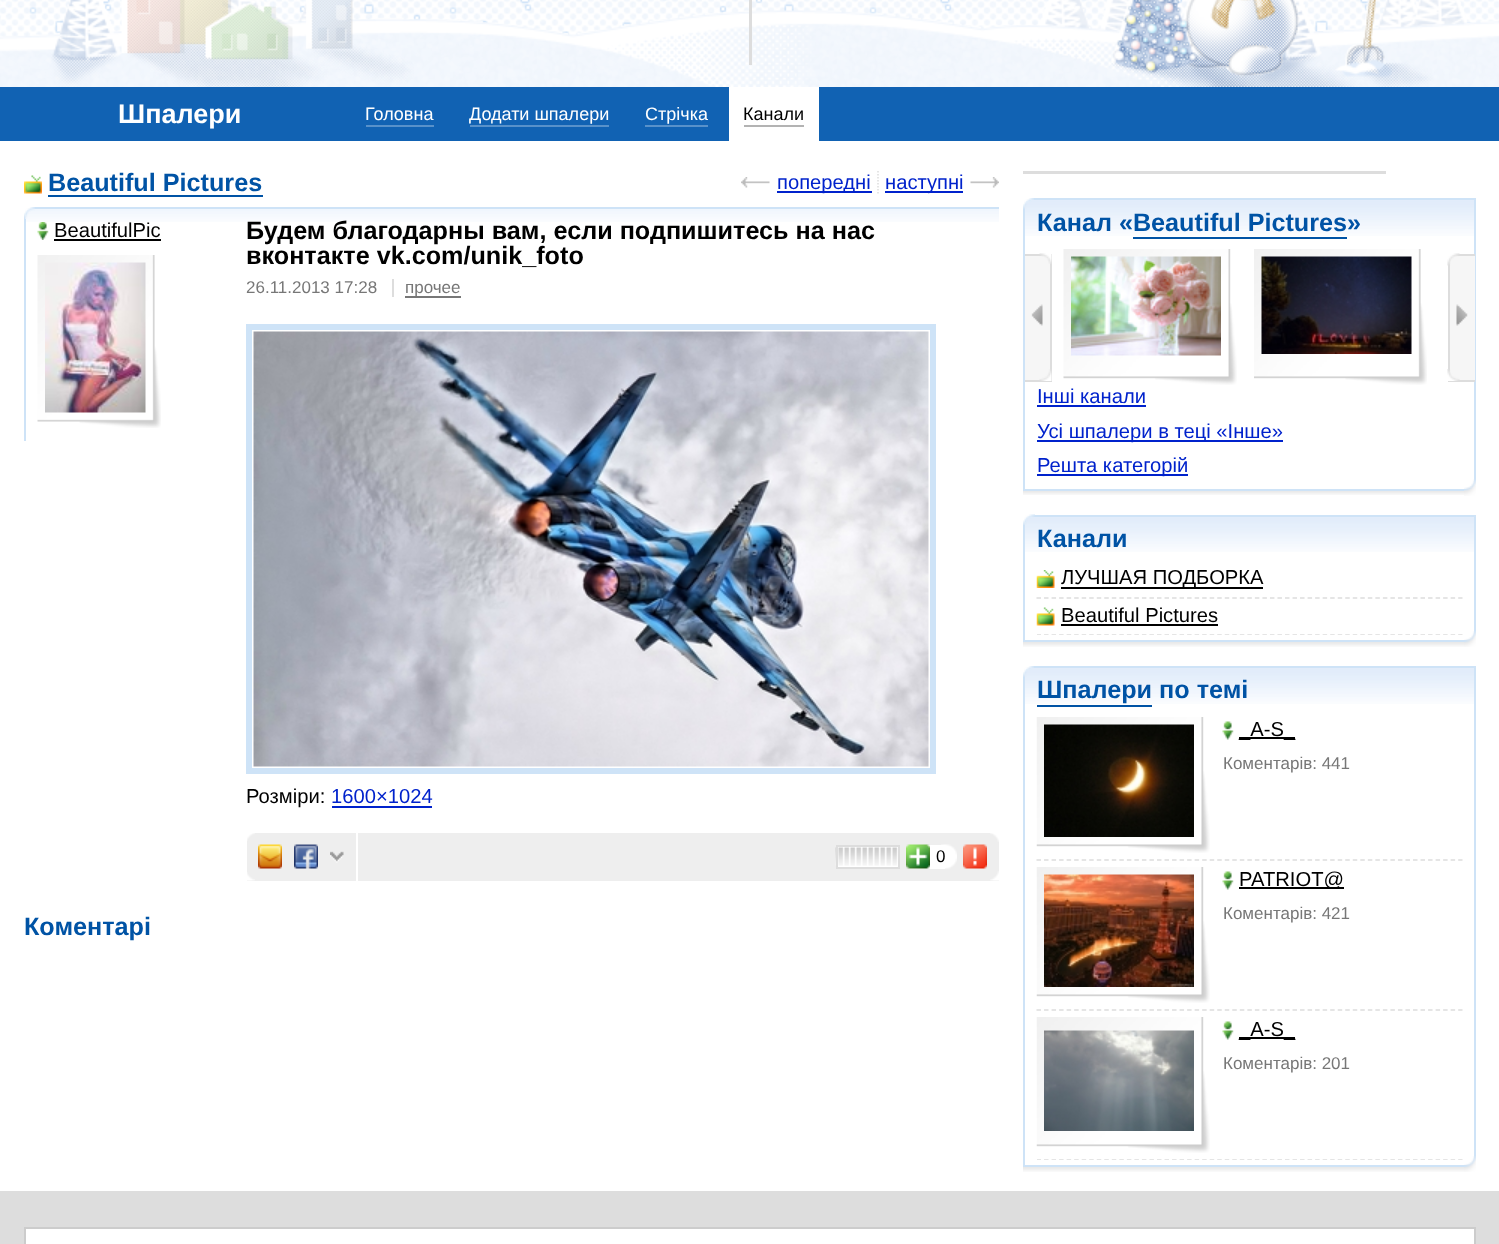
<svg xmlns="http://www.w3.org/2000/svg" width="1499" height="1244" viewBox="0 0 1499 1244">
  <defs>
    <clipPath id="clip1"><rect x="1037" y="560" width="426" height="75"/></clipPath>
    <clipPath id="clip2"><rect x="1037" y="710" width="426" height="450"/></clipPath>
  </defs>
  <rect width="100%" height="100%" fill="#ffffff"/>
  <image x="0" y="0" width="1499" height="87" href="img1.png"/>
  <rect x="749" y="0" width="3" height="65" fill="#dddddd"/>
  <rect x="0" y="87" width="1499" height="54" fill="#1162b3"/>
  <text x="118" y="123" font-family="Liberation Sans" font-size="27" font-weight="bold" fill="#ffffff">Шпалери</text>
  <text x="365" y="120" font-family="Liberation Sans" font-size="18" fill="#ffffff">Головна</text>
  <rect x="366" y="125" width="68" height="2" fill="#5891ca"/>
  <text x="469" y="120" font-family="Liberation Sans" font-size="18" fill="#ffffff">Додати шпалери</text>
  <rect x="470" y="125" width="139" height="2" fill="#5891ca"/>
  <text x="645" y="120" font-family="Liberation Sans" font-size="18" fill="#ffffff">Стрічка</text>
  <rect x="645" y="125" width="63" height="2" fill="#5891ca"/>
  <rect x="729" y="87" width="90" height="54" fill="#ffffff"/>
  <text x="743" y="120" font-family="Liberation Sans" font-size="18" fill="#000000">Канали</text>
  <rect x="744" y="125" width="60" height="2" fill="#b3b3b3"/>
  <rect x="48" y="195" width="215" height="2" fill="#0053a5"/>
  <image x="24" y="175" width="18" height="19" href="img2.png"/>
  <text x="48" y="191" font-family="Liberation Sans" font-size="25.2" font-weight="bold" fill="#0053a5">Beautiful Pictures</text>
  <path d="M878 171V193.5" fill="none" stroke="#dddddd" stroke-width="1.5" stroke-dasharray="1.5 1.5"/>
  <image x="741" y="177" width="29" height="11" href="img3.png"/>
  <rect x="777" y="191" width="95" height="2" fill="#0022cc"/>
  <text x="777" y="189" font-family="Liberation Sans" font-size="20.2" fill="#0022cc">попередні</text>
  <rect x="885" y="191" width="78" height="2" fill="#0022cc"/>
  <text x="885" y="189" font-family="Liberation Sans" font-size="20.2" fill="#0022cc">наступні</text>
  <image x="970" y="177" width="29" height="11" href="img4.png"/>
  <image x="25" y="209" width="974" height="13" href="img5.png"/>
  <rect x="24" y="207" width="975" height="2" fill="#cee3f7"/>
  <image x="24" y="207" width="11" height="12" href="img6.png"/>
  <rect x="24" y="219" width="2" height="222" fill="#cee3f7"/>
  <image x="37" y="222" width="12" height="18" href="img7.png"/>
  <text x="54" y="237" font-family="Liberation Sans" font-size="20.2" fill="#000000">BeautifulPic</text>
  <rect x="54" y="239" width="107" height="2" fill="#000000"/>
  <image x="37" y="255" width="124" height="173" href="img8.png"/>
  <image x="45" y="262" width="101" height="151" href="img9.png"/>
  <text x="246" y="239" font-family="Liberation Sans" font-size="25.2" font-weight="bold" fill="#000000">Будем благодарны вам, если подпишитесь на нас</text>
  <text x="246" y="264" font-family="Liberation Sans" font-size="25.2" font-weight="bold" fill="#000000">вконтакте vk.com/unik_foto</text>
  <text x="246" y="293" font-family="Liberation Sans" font-size="17" fill="#777777">26.11.2013 17:28</text>
  <rect x="405" y="296" width="56" height="2" fill="#777777"/>
  <text x="405" y="293" font-family="Liberation Sans" font-size="17" fill="#777777">прочее</text>
  <rect x="392" y="279" width="2" height="18" fill="#dddddd"/>
  <rect x="249" y="327" width="684" height="444" fill="none" stroke="#cee3f7" stroke-width="6"/>
  <image x="253" y="331" width="676" height="436" href="img10.png"/>
  <text x="246" y="803" font-family="Liberation Sans" font-size="20.2" fill="#000000">Розміри:</text>
  <text x="331" y="803" font-family="Liberation Sans" font-size="20.2" fill="#0022cc">1600×1024</text>
  <rect x="332" y="806" width="100" height="2" fill="#0022cc"/>
  <rect x="247" y="833" width="752" height="48" fill="#eeeeee"/>
  <image x="247" y="833" width="8" height="8" href="img11.png"/>
  <image x="990" y="833" width="9" height="9" href="img12.png"/>
  <rect x="356" y="833" width="2" height="49" fill="#ffffff"/>
  <image x="258" y="844" width="24" height="25" href="img13.png"/>
  <image x="294" y="844" width="24" height="25" href="img14.png"/>
  <image x="330" y="851" width="14" height="12" href="img15.png"/>
  <rect x="838" y="847" width="60" height="20" fill="#ffffff"/>
  <image x="835" y="847" width="63" height="19" href="img16.png"/>
  <rect x="837" y="846" width="62" height="22" fill="none" stroke="#dddddd" stroke-width="2"/>
  <rect x="909" y="845" width="36" height="24" fill="#ffffff"/>
  <image x="906" y="844" width="24" height="25" href="img17.png"/>
  <image x="941" y="844" width="16" height="25" href="img18.png"/>
  <text x="936" y="862" font-family="Liberation Sans" font-size="17" fill="#000000">0</text>
  <image x="963" y="844" width="24" height="25" href="img19.png"/>
  <image x="247" y="872" width="8" height="9" href="img20.png"/>
  <image x="990" y="871" width="9" height="10" href="img21.png"/>
  <text x="24" y="935" font-family="Liberation Sans" font-size="25.2" font-weight="bold" fill="#0053a5">Коментарі</text>
  <rect x="1023" y="171" width="363" height="3" fill="#dddddd"/>
  <image x="1023" y="491" width="441" height="4" href="img22.png"/>
  <image x="1025" y="200" width="449" height="36" href="img24.png"/>
  <rect x="1024" y="199" width="451" height="291" fill="none" stroke="#cee3f7" stroke-width="2"/>
  <image x="1023" y="198" width="11" height="11" href="img23.png"/>
  <text x="1037" y="231" font-family="Liberation Sans" font-size="25.2" font-weight="bold" fill="#0053a5">Канал «Beautiful Pictures»</text>
  <rect x="1133" y="237" width="214" height="2" fill="#0053a5"/>
  <rect x="1025" y="256" width="25" height="124" fill="#f6f6f6"/>
  <rect x="1025" y="254" width="27" height="2" fill="#dddddd"/>
  <rect x="1050" y="254" width="2" height="127" fill="#dddddd"/>
  <rect x="1025" y="380" width="27" height="2" fill="#dddddd"/>
  <image x="1039" y="253" width="13" height="11" href="img25.png"/>
  <image x="1031" y="304" width="12" height="22" href="img26.png"/>
  <image x="1039" y="369" width="13" height="12" href="img27.png"/>
  <image x="1063" y="249" width="174" height="136" href="img28.png"/>
  <image x="1071" y="256" width="150" height="100" href="img29.png"/>
  <image x="1254" y="249" width="173" height="136" href="img30.png"/>
  <image x="1261" y="256" width="151" height="98" href="img31.png"/>
  <rect x="1450" y="256" width="25" height="124" fill="#f6f6f6"/>
  <rect x="1448" y="254" width="27" height="2" fill="#dddddd"/>
  <rect x="1448" y="380" width="27" height="2" fill="#dddddd"/>
  <rect x="1448" y="254" width="2" height="127" fill="#dddddd"/>
  <image x="1447" y="253" width="13" height="13" href="img32.png"/>
  <image x="1456" y="304" width="12" height="22" href="img33.png"/>
  <image x="1447" y="369" width="13" height="12" href="img34.png"/>
  <text x="1037" y="403" font-family="Liberation Sans" font-size="20.2" fill="#0022cc">Інші канали</text>
  <rect x="1037" y="405" width="109" height="2" fill="#0022cc"/>
  <rect x="1037" y="440" width="246" height="2" fill="#0022cc"/>
  <text x="1037" y="438" font-family="Liberation Sans" font-size="20.2" fill="#0022cc">Усі шпалери в теці «Інше»</text>
  <rect x="1037" y="474" width="151" height="2" fill="#0022cc"/>
  <text x="1037" y="472" font-family="Liberation Sans" font-size="20.2" fill="#0022cc">Решта категорій</text>
  <image x="1464" y="479" width="12" height="17" href="img35.png"/>
  <image x="1023" y="642" width="441" height="5" href="img36.png"/>
  <image x="1025" y="517" width="449" height="35" href="img38.png"/>
  <rect x="1024" y="516" width="451" height="125" fill="none" stroke="#cee3f7" stroke-width="2"/>
  <image x="1023" y="514" width="12" height="11" href="img37.png"/>
  <text x="1037" y="547" font-family="Liberation Sans" font-size="25.2" font-weight="bold" fill="#0053a5">Канали</text>
  <path d="M1036.5 598H1462.5" fill="none" stroke="#dddddd" stroke-width="1.5" stroke-dasharray="4.5 3.03"/>
  <image x="1036" y="570" width="19" height="18" href="img39.png"/>
  <rect x="1061" y="587" width="202" height="2" fill="#000000"/>
  <text x="1061" y="584" font-family="Liberation Sans" font-size="20.2" fill="#000000">ЛУЧШАЯ ПОДБОРКА</text>
  <g clip-path="url(#clip1)">
    <path d="M1036.5 635H1462.5" fill="none" stroke="#dddddd" stroke-width="1.5" stroke-dasharray="4.5 3.03"/>
  </g>
  <image x="1036" y="607" width="19" height="19" href="img40.png"/>
  <text x="1061" y="622" font-family="Liberation Sans" font-size="20.2" fill="#000000">Beautiful Pictures</text>
  <rect x="1061" y="624" width="157" height="2" fill="#000000"/>
  <image x="1464" y="631" width="12" height="16" href="img41.png"/>
  <image x="1023" y="1167" width="441" height="5" href="img36.png"/>
  <image x="1025" y="668" width="449" height="36" href="img24.png"/>
  <rect x="1024" y="667" width="451" height="499" fill="none" stroke="#cee3f7" stroke-width="2"/>
  <image x="1023" y="666" width="11" height="11" href="img23.png"/>
  <text x="1037" y="698" font-family="Liberation Sans" font-size="25.2" font-weight="bold" fill="#0053a5">Шпалери по темі</text>
  <rect x="1037" y="705" width="115" height="2" fill="#0053a5"/>
  <path d="M1036.5 860H1462.5" fill="none" stroke="#dddddd" stroke-width="1.5" stroke-dasharray="4.5 3.03"/>
  <image x="1036" y="717" width="174" height="136" href="img42.png"/>
  <image x="1044" y="724" width="150" height="113" href="img43.png"/>
  <image x="1222" y="721" width="12" height="19" href="img44.png"/>
  <rect x="1239" y="737" width="56" height="2" fill="#000000"/>
  <text x="1239" y="736" font-family="Liberation Sans" font-size="20.2" fill="#000000">_A-S_</text>
  <text x="1223" y="769" font-family="Liberation Sans" font-size="17" fill="#777777">Коментарів: 441</text>
  <path d="M1036.5 1010H1462.5" fill="none" stroke="#dddddd" stroke-width="1.5" stroke-dasharray="4.5 3.03"/>
  <image x="1036" y="867" width="174" height="136" href="img42.png"/>
  <image x="1044" y="874" width="150" height="113" href="img45.png"/>
  <image x="1222" y="871" width="12" height="19" href="img44.png"/>
  <rect x="1239" y="887" width="105" height="2" fill="#000000"/>
  <text x="1239" y="886" font-family="Liberation Sans" font-size="20.2" fill="#000000">PATRIOT@</text>
  <text x="1223" y="919" font-family="Liberation Sans" font-size="17" fill="#777777">Коментарів: 421</text>
  <g clip-path="url(#clip2)">
    <path d="M1036.5 1160H1462.5" fill="none" stroke="#dddddd" stroke-width="1.5" stroke-dasharray="4.5 3.03"/>
  </g>
  <image x="1036" y="1017" width="174" height="136" href="img42.png"/>
  <image x="1044" y="1030" width="150" height="101" href="img46.png"/>
  <image x="1222" y="1021" width="12" height="19" href="img44.png"/>
  <rect x="1239" y="1037" width="56" height="2" fill="#000000"/>
  <text x="1239" y="1036" font-family="Liberation Sans" font-size="20.2" fill="#000000">_A-S_</text>
  <text x="1223" y="1069" font-family="Liberation Sans" font-size="17" fill="#777777">Коментарів: 201</text>
  <image x="1464" y="1156" width="12" height="16" href="img41.png"/>
  <rect x="0" y="1191" width="1499" height="53" fill="#dddddd"/>
  <rect x="25" y="1228" width="1450" height="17" fill="#ffffff" stroke="#cccccc" stroke-width="2"/>
</svg>
